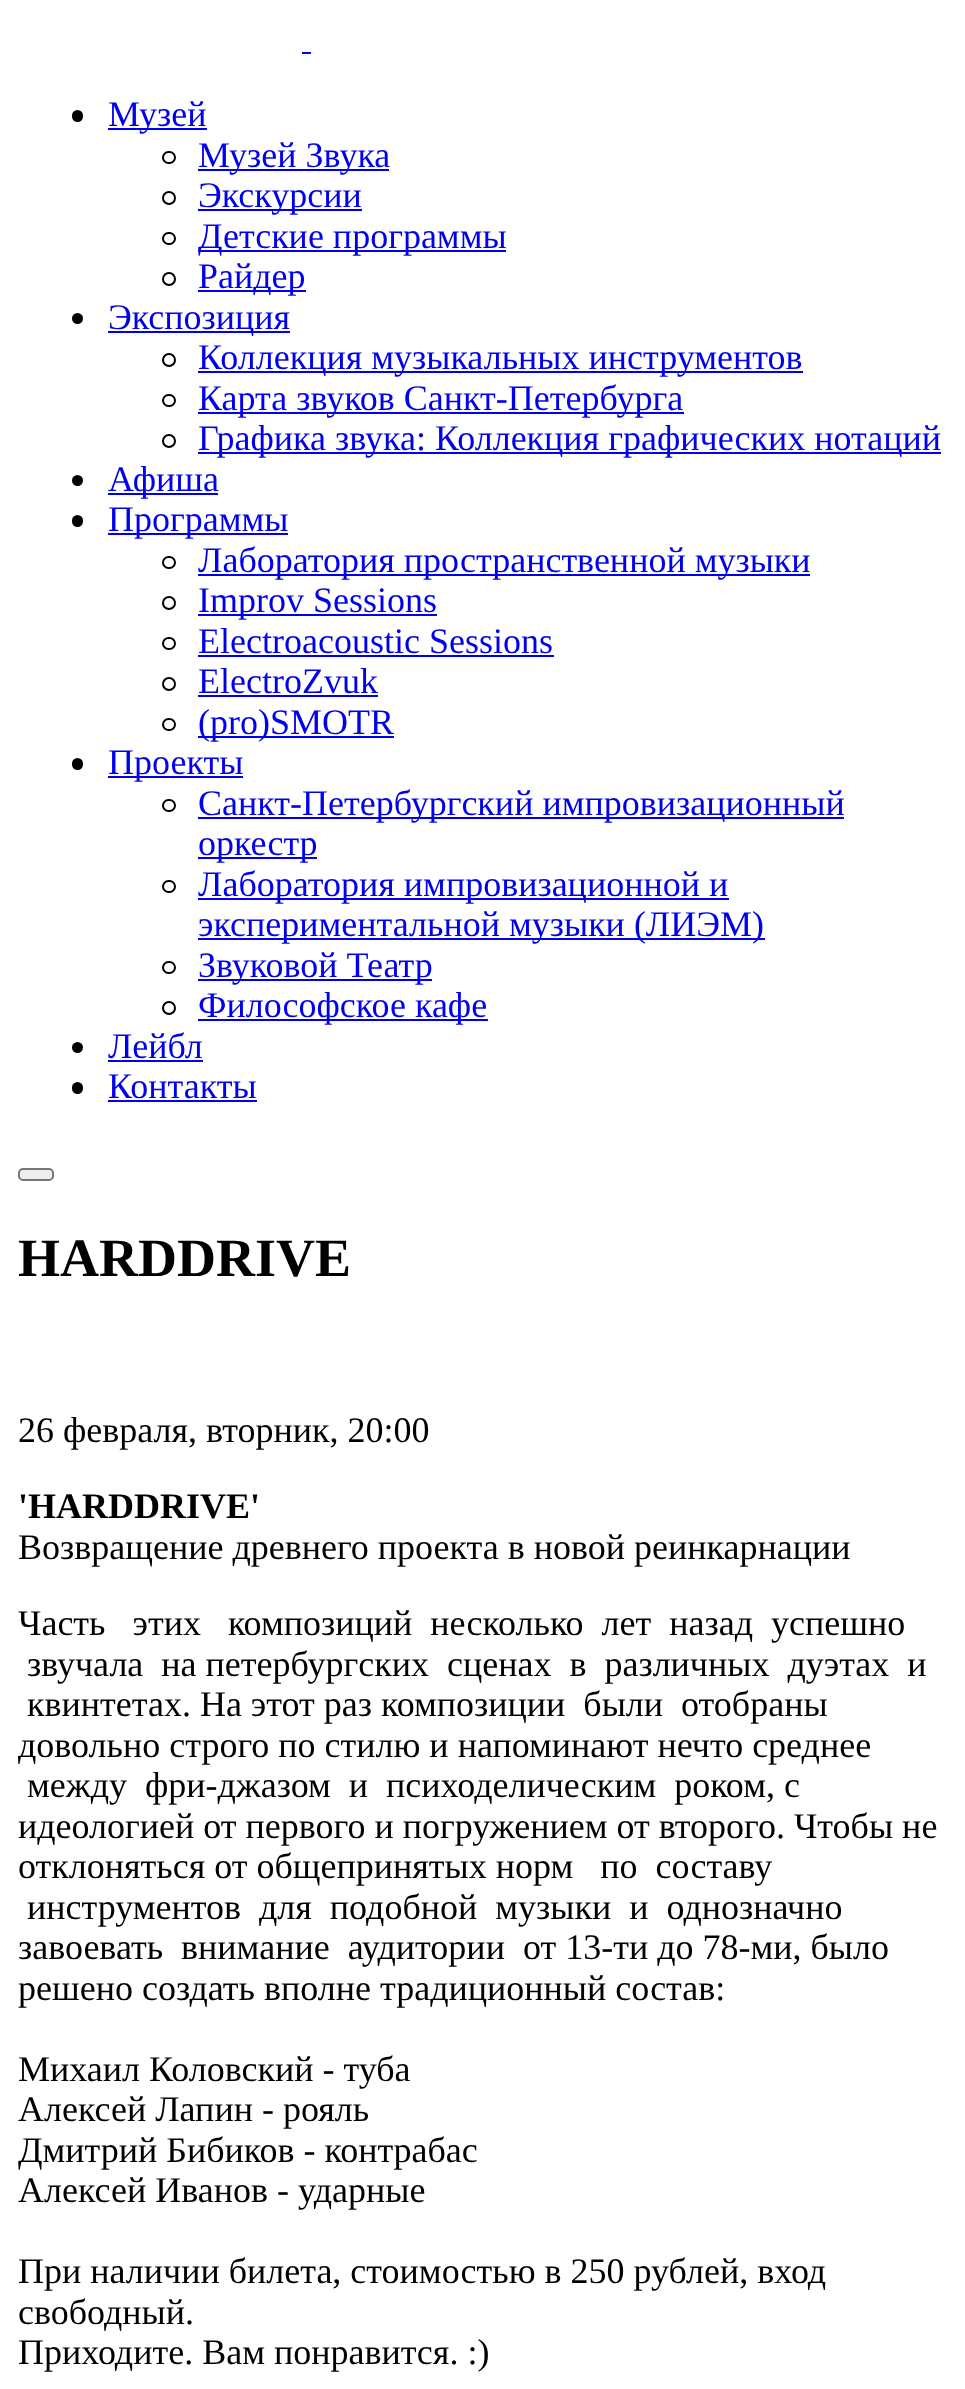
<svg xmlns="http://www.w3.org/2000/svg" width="965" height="2389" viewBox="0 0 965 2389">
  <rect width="100%" height="100%" fill="#ffffff"/>
  <rect x="302" y="52" width="9" height="2" fill="#0000ee"/>
  <rect x="72" y="110" width="11" height="12" rx="5.5" fill="#000000"/>
  <rect x="108" y="128" width="99" height="2" fill="#0000ee"/>
  <text x="108" y="126" font-family="Liberation Serif" font-size="36" fill="#0000ee">Музей</text>
  <rect x="163" y="152" width="12" height="11" rx="5.5" fill="none" stroke="#000000" stroke-width="2"/>
  <rect x="198" y="169" width="191" height="2" fill="#0000ee"/>
  <text x="198" y="167" font-family="Liberation Serif" font-size="36" fill="#0000ee">Музей Звука</text>
  <circle cx="169" cy="198" r="6" fill="none" stroke="#000000" stroke-width="2"/>
  <rect x="198" y="209" width="164" height="2" fill="#0000ee"/>
  <text x="198" y="207" font-family="Liberation Serif" font-size="36" fill="#0000ee">Экскурсии</text>
  <rect x="163" y="233" width="12" height="11" rx="5.5" fill="none" stroke="#000000" stroke-width="2"/>
  <rect x="198" y="250" width="308" height="2" fill="#0000ee"/>
  <text x="198" y="248" font-family="Liberation Serif" font-size="36" fill="#0000ee">Детские программы</text>
  <circle cx="169" cy="279" r="6" fill="none" stroke="#000000" stroke-width="2"/>
  <rect x="198" y="290" width="108" height="2" fill="#0000ee"/>
  <text x="198" y="288" font-family="Liberation Serif" font-size="36" fill="#0000ee">Райдер</text>
  <circle cx="77.5" cy="318.5" r="5.5" fill="#000000"/>
  <rect x="108" y="331" width="182" height="2" fill="#0000ee"/>
  <text x="108" y="329" font-family="Liberation Serif" font-size="36" fill="#0000ee">Экспозиция</text>
  <circle cx="169" cy="360" r="6" fill="none" stroke="#000000" stroke-width="2"/>
  <rect x="198" y="371" width="605" height="2" fill="#0000ee"/>
  <text x="198" y="369" font-family="Liberation Serif" font-size="36" fill="#0000ee">Коллекция музыкальных инструментов</text>
  <rect x="163" y="395" width="12" height="11" rx="5.5" fill="none" stroke="#000000" stroke-width="2"/>
  <rect x="198" y="412" width="486" height="2" fill="#0000ee"/>
  <text x="198" y="410" font-family="Liberation Serif" font-size="36" fill="#0000ee">Карта звуков Санкт-Петербурга</text>
  <circle cx="169" cy="441" r="6" fill="none" stroke="#000000" stroke-width="2"/>
  <rect x="198" y="452" width="743" height="2" fill="#0000ee"/>
  <text x="198" y="450" font-family="Liberation Serif" font-size="36" fill="#0000ee">Графика звука: Коллекция графических нотаций</text>
  <circle cx="77.5" cy="480.5" r="5.5" fill="#000000"/>
  <rect x="108" y="493" width="110" height="2" fill="#0000ee"/>
  <text x="108" y="491" font-family="Liberation Serif" font-size="36" fill="#0000ee">Афиша</text>
  <rect x="72" y="515" width="11" height="12" rx="5.5" fill="#000000"/>
  <rect x="108" y="533" width="180" height="2" fill="#0000ee"/>
  <text x="108" y="531" font-family="Liberation Serif" font-size="36" fill="#0000ee">Программы</text>
  <rect x="163" y="557" width="12" height="11" rx="5.5" fill="none" stroke="#000000" stroke-width="2"/>
  <rect x="198" y="574" width="612" height="2" fill="#0000ee"/>
  <text x="198" y="572" font-family="Liberation Serif" font-size="36" fill="#0000ee">Лаборатория пространственной музыки</text>
  <circle cx="169" cy="603" r="6" fill="none" stroke="#000000" stroke-width="2"/>
  <rect x="198" y="614" width="239" height="2" fill="#0000ee"/>
  <text x="198" y="612" font-family="Liberation Serif" font-size="36" fill="#0000ee">Improv Sessions</text>
  <rect x="163" y="638" width="12" height="11" rx="5.5" fill="none" stroke="#000000" stroke-width="2"/>
  <text x="198" y="653" font-family="Liberation Serif" font-size="36" fill="#0000ee">Electroacoustic Sessions</text>
  <rect x="198" y="655" width="356" height="2" fill="#0000ee"/>
  <circle cx="169" cy="684" r="6" fill="none" stroke="#000000" stroke-width="2"/>
  <text x="198" y="693" font-family="Liberation Serif" font-size="36" fill="#0000ee">ElectroZvuk</text>
  <rect x="198" y="695" width="180" height="2" fill="#0000ee"/>
  <rect x="163" y="719" width="12" height="11" rx="5.5" fill="none" stroke="#000000" stroke-width="2"/>
  <rect x="198" y="736" width="196" height="2" fill="#0000ee"/>
  <text x="198" y="734" font-family="Liberation Serif" font-size="36" fill="#0000ee">(pro)SMOTR</text>
  <rect x="72" y="758" width="11" height="12" rx="5.5" fill="#000000"/>
  <rect x="108" y="776" width="135" height="2" fill="#0000ee"/>
  <text x="108" y="774" font-family="Liberation Serif" font-size="36" fill="#0000ee">Проекты</text>
  <rect x="163" y="800" width="12" height="11" rx="5.5" fill="none" stroke="#000000" stroke-width="2"/>
  <rect x="198" y="817" width="646" height="2" fill="#0000ee"/>
  <text x="198" y="815" font-family="Liberation Serif" font-size="36" fill="#0000ee">Санкт-Петербургский импровизационный</text>
  <rect x="198" y="857" width="119" height="2" fill="#0000ee"/>
  <text x="198" y="855" font-family="Liberation Serif" font-size="36" fill="#0000ee">оркестр</text>
  <rect x="163" y="881" width="12" height="11" rx="5.5" fill="none" stroke="#000000" stroke-width="2"/>
  <rect x="198" y="898" width="531" height="2" fill="#0000ee"/>
  <text x="198" y="896" font-family="Liberation Serif" font-size="36" fill="#0000ee">Лаборатория импровизационной и</text>
  <rect x="198" y="938" width="567" height="2" fill="#0000ee"/>
  <text x="198" y="936" font-family="Liberation Serif" font-size="36" fill="#0000ee">экспериментальной музыки (ЛИЭМ)</text>
  <rect x="163" y="962" width="12" height="11" rx="5.5" fill="none" stroke="#000000" stroke-width="2"/>
  <rect x="198" y="979" width="234" height="2" fill="#0000ee"/>
  <text x="198" y="977" font-family="Liberation Serif" font-size="36" fill="#0000ee">Звуковой Театр</text>
  <circle cx="169" cy="1008" r="6" fill="none" stroke="#000000" stroke-width="2"/>
  <rect x="198" y="1019" width="290" height="2" fill="#0000ee"/>
  <text x="198" y="1017" font-family="Liberation Serif" font-size="36" fill="#0000ee">Философское кафе</text>
  <circle cx="77.5" cy="1047.5" r="5.5" fill="#000000"/>
  <text x="108" y="1058" font-family="Liberation Serif" font-size="36" fill="#0000ee">Лейбл</text>
  <rect x="108" y="1060" width="95" height="2" fill="#0000ee"/>
  <rect x="72" y="1082" width="11" height="12" rx="5.5" fill="#000000"/>
  <text x="108" y="1098" font-family="Liberation Serif" font-size="36" fill="#0000ee">Контакты</text>
  <rect x="108" y="1100" width="149" height="2" fill="#0000ee"/>
  <rect x="19" y="1169" width="34" height="11" rx="4" fill="#efefef" stroke="#767676" stroke-width="2"/>
  <text x="18" y="1276" font-family="Liberation Serif" font-size="54" font-weight="bold" fill="#000000">HARDDRIVE</text>
  <text x="18" y="1442" font-family="Liberation Serif" font-size="36" fill="#000000">26 февраля, вторник, 20:00</text>
  <text x="18" y="1518" font-family="Liberation Serif" font-size="36" font-weight="bold" fill="#000000">'HARDDRIVE'</text>
  <text x="18" y="1559" font-family="Liberation Serif" font-size="36" fill="#000000">Возвращение древнего проекта в новой реинкарнации</text>
  <text x="18" y="1635" font-family="Liberation Serif" font-size="36" fill="#000000" xml:space="preserve">Часть   этих   композиций  несколько  лет  назад  успешно</text>
  <text x="27" y="1676" font-family="Liberation Serif" font-size="36" fill="#000000" xml:space="preserve">звучала  на петербургских  сценах  в  различных  дуэтах  и</text>
  <text x="27" y="1716" font-family="Liberation Serif" font-size="36" fill="#000000" xml:space="preserve">квинтетах. На этот раз композиции  были  отобраны</text>
  <text x="18" y="1757" font-family="Liberation Serif" font-size="36" fill="#000000">довольно строго по стилю и напоминают нечто среднее</text>
  <text x="27" y="1797" font-family="Liberation Serif" font-size="36" fill="#000000" xml:space="preserve">между  фри-джазом  и  психоделическим  роком, с</text>
  <text x="18" y="1838" font-family="Liberation Serif" font-size="36" fill="#000000">идеологией от первого и погружением от второго. Чтобы не</text>
  <text x="18" y="1878" font-family="Liberation Serif" font-size="36" fill="#000000" xml:space="preserve">отклоняться от общепринятых норм   по  составу</text>
  <text x="27" y="1919" font-family="Liberation Serif" font-size="36" fill="#000000" xml:space="preserve">инструментов  для  подобной  музыки  и  однозначно</text>
  <text x="18" y="1959" font-family="Liberation Serif" font-size="36" fill="#000000" xml:space="preserve">завоевать  внимание  аудитории  от 13-ти до 78-ми, было</text>
  <text x="18" y="2000" font-family="Liberation Serif" font-size="36" fill="#000000">решено создать вполне традиционный состав:</text>
  <text x="18" y="2081" font-family="Liberation Serif" font-size="36" fill="#000000">Михаил Коловский - туба</text>
  <text x="18" y="2121" font-family="Liberation Serif" font-size="36" fill="#000000">Алексей Лапин - рояль</text>
  <text x="18" y="2162" font-family="Liberation Serif" font-size="36" fill="#000000">Дмитрий Бибиков - контрабас</text>
  <text x="18" y="2202" font-family="Liberation Serif" font-size="36" fill="#000000">Алексей Иванов - ударные</text>
  <text x="18" y="2283" font-family="Liberation Serif" font-size="36" fill="#000000">При наличии билета, стоимостью в 250 рублей, вход</text>
  <text x="18" y="2324" font-family="Liberation Serif" font-size="36" fill="#000000">свободный.</text>
  <text x="18" y="2364" font-family="Liberation Serif" font-size="36" fill="#000000">Приходите. Вам понравится. :)</text>
</svg>
